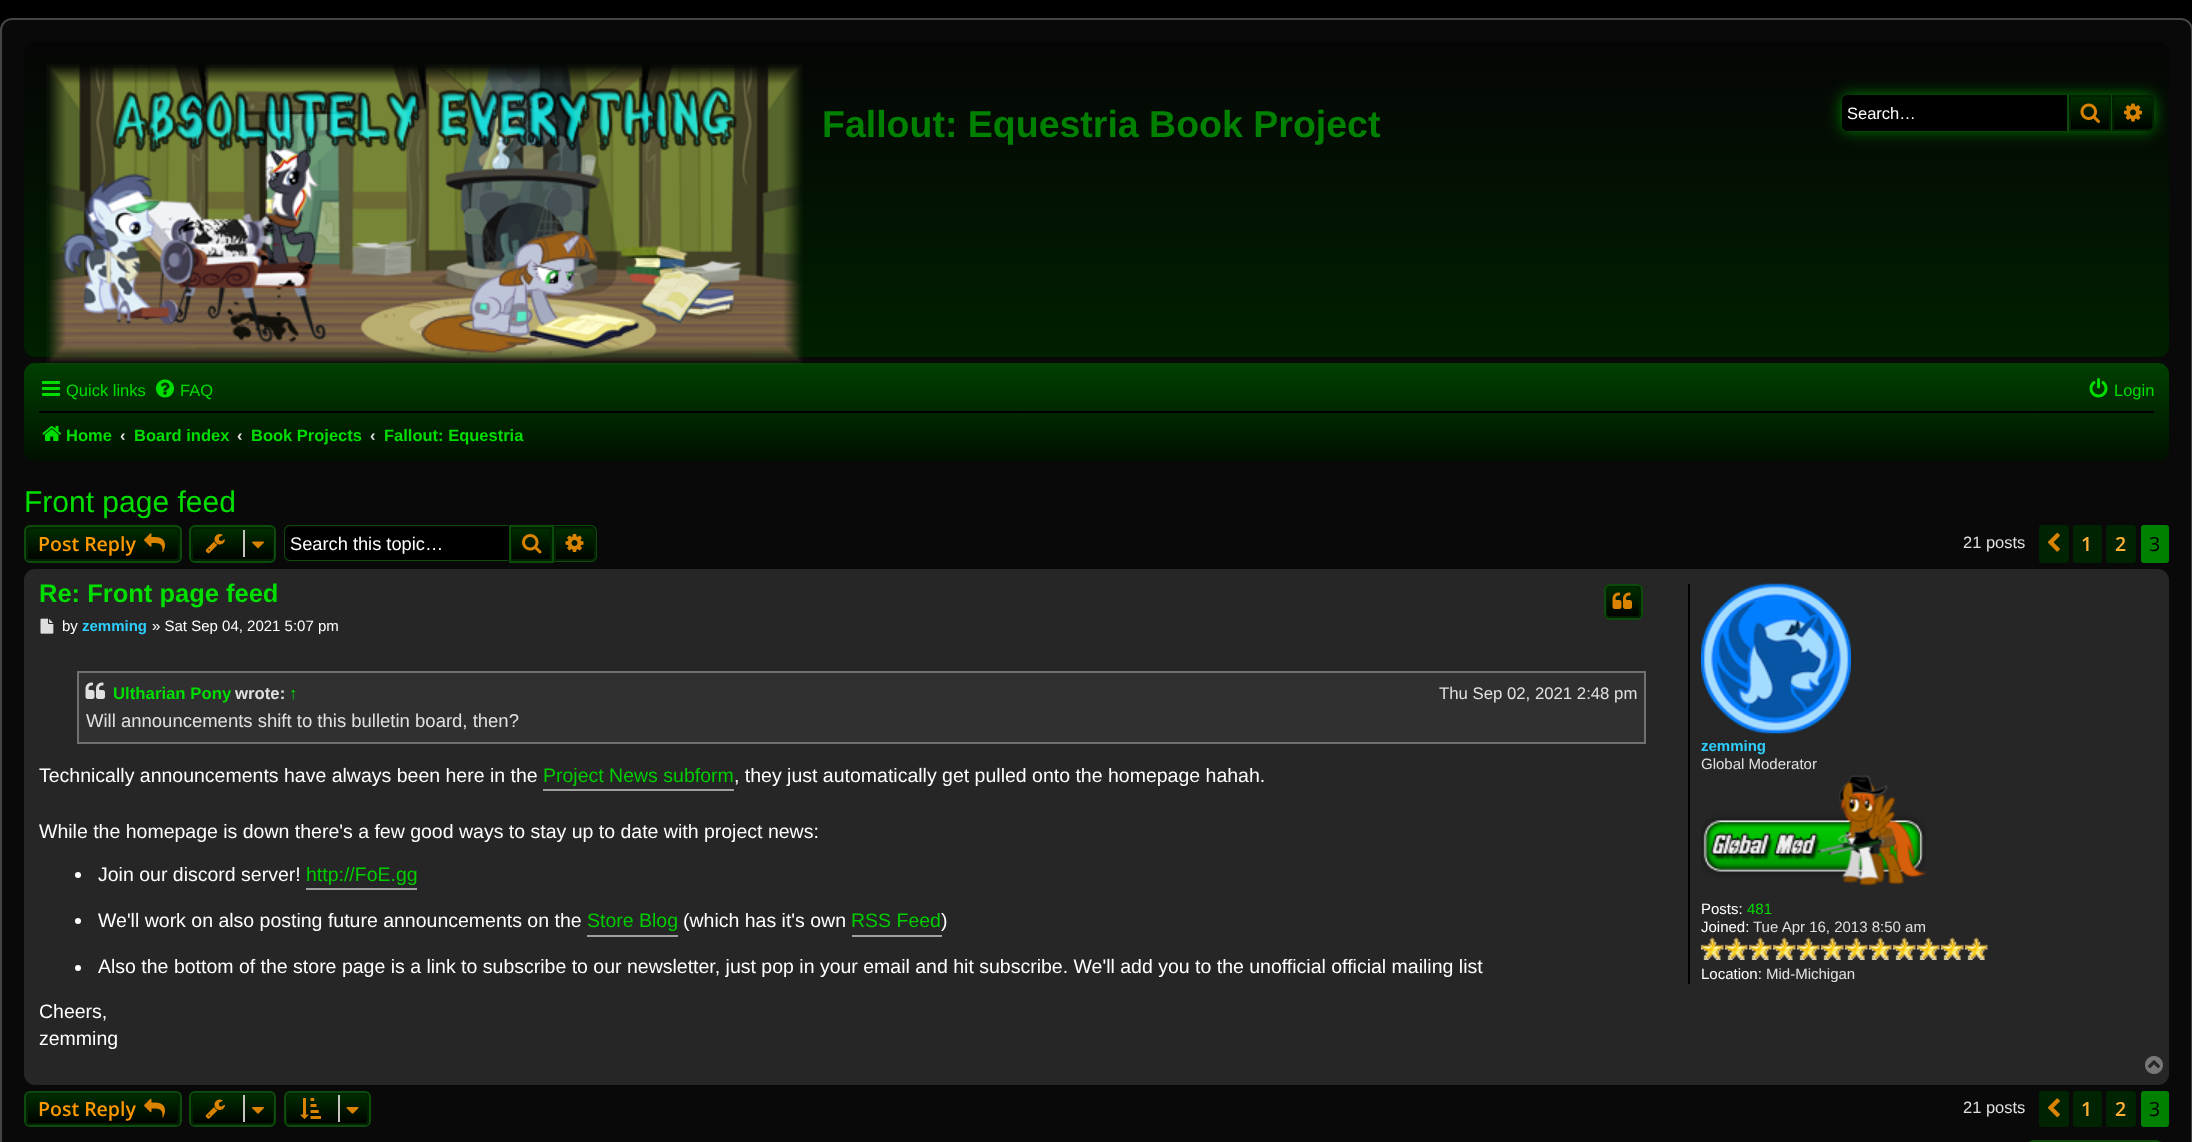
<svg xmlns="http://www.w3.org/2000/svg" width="2192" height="1142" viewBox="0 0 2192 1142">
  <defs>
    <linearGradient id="g1" gradientUnits="userSpaceOnUse" x1="1097" y1="42" x2="1097" y2="357"><stop offset="0" stop-color="#050505"/><stop offset="1" stop-color="#002000"/></linearGradient>
    <linearGradient id="g2" gradientUnits="userSpaceOnUse" x1="1097" y1="363" x2="1097" y2="461"><stop offset="0" stop-color="#004000"/><stop offset="1" stop-color="#001000"/></linearGradient>
    <filter id="blur1" x="-50%" y="-200%" width="200%" height="500%"><feGaussianBlur stdDeviation="7.5"/></filter>
    <linearGradient id="g3" gradientUnits="userSpaceOnUse" x1="2090" y1="95" x2="2090" y2="131"><stop offset="0" stop-color="#003000"/><stop offset="1" stop-color="#000000"/></linearGradient>
    <linearGradient id="g4" gradientUnits="userSpaceOnUse" x1="2133" y1="95" x2="2133" y2="131"><stop offset="0" stop-color="#003000"/><stop offset="1" stop-color="#000000"/></linearGradient>
    <clipPath id="clip1"><rect x="24" y="525" width="158" height="38" rx="6"/></clipPath>
    <linearGradient id="g5" gradientUnits="userSpaceOnUse" x1="103" y1="527" x2="103" y2="561"><stop offset="0" stop-color="#003000"/><stop offset="1" stop-color="#000000"/></linearGradient>
    <clipPath id="clip2"><rect x="189" y="525" width="87" height="38" rx="6"/></clipPath>
    <linearGradient id="g6" gradientUnits="userSpaceOnUse" x1="233" y1="527" x2="233" y2="561"><stop offset="0" stop-color="#003000"/><stop offset="1" stop-color="#000000"/></linearGradient>
    <linearGradient id="g7" gradientUnits="userSpaceOnUse" x1="531" y1="527" x2="531" y2="561"><stop offset="0" stop-color="#003000"/><stop offset="1" stop-color="#000000"/></linearGradient>
    <linearGradient id="g8" gradientUnits="userSpaceOnUse" x1="575" y1="527" x2="575" y2="561"><stop offset="0" stop-color="#003000"/><stop offset="1" stop-color="#000000"/></linearGradient>
    <clipPath id="clip3"><rect x="1604" y="584" width="39" height="36" rx="6"/></clipPath>
    <linearGradient id="g9" gradientUnits="userSpaceOnUse" x1="1623" y1="585" x2="1623" y2="618"><stop offset="0" stop-color="#003000"/><stop offset="1" stop-color="#000000"/></linearGradient>
    <clipPath id="clip4"><rect x="24" y="1091" width="158" height="36" rx="6"/></clipPath>
    <linearGradient id="g10" gradientUnits="userSpaceOnUse" x1="103" y1="1092" x2="103" y2="1125"><stop offset="0" stop-color="#003000"/><stop offset="1" stop-color="#000000"/></linearGradient>
    <clipPath id="clip5"><rect x="189" y="1091" width="87" height="36" rx="6"/></clipPath>
    <linearGradient id="g11" gradientUnits="userSpaceOnUse" x1="233" y1="1092" x2="233" y2="1125"><stop offset="0" stop-color="#003000"/><stop offset="1" stop-color="#000000"/></linearGradient>
    <clipPath id="clip6"><rect x="284" y="1091" width="87" height="36" rx="6"/></clipPath>
    <linearGradient id="g12" gradientUnits="userSpaceOnUse" x1="327" y1="1092" x2="327" y2="1125"><stop offset="0" stop-color="#003000"/><stop offset="1" stop-color="#000000"/></linearGradient>
  </defs>
  <rect width="100%" height="100%" fill="#000000"/>
  <rect x="1" y="19" width="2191" height="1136" rx="11" fill="#090909" stroke="#454545" stroke-width="2"/>
  <rect x="24" y="42" width="2145" height="315" rx="11" fill="url(#g1)"/>
  <rect x="24" y="363" width="2145" height="98" rx="11" fill="url(#g2)"/>
  <image x="46" y="64" width="757" height="301" href="img1.png"/>
  <text x="822" y="137" font-family="Liberation Sans" font-size="37.5" font-weight="bold" fill="#008000">Fallout: Equestria Book Project</text>
  <rect x="1842" y="95" width="312" height="36" rx="6" fill="#007f00" filter="url(#blur1)"/>
  <path d="M1848 95H2067V131H1848C1844.5 131 1842 128.5 1842 125V101C1842 97.5 1844.5 95 1848 95Z" fill="#000000"/>
  <text x="1847" y="119" font-family="Liberation Sans" font-size="16.5" fill="#ffffff">Search…</text>
  <rect x="2071" y="97" width="38" height="32" fill="url(#g3)"/>
  <rect x="2070" y="96" width="40" height="34" fill="none" stroke="#002000" stroke-width="2"/>
  <rect x="2111" y="95" width="1" height="36" fill="#0c4b0c"/>
  <rect x="2067" y="95" width="2" height="36" fill="#0c4b0c"/>
  <image x="2080" y="103" width="20" height="20" href="img2.png"/>
  <path d="M2113 96H2148C2151 96 2153 98 2153 101V125C2153 128 2151 130 2148 130H2113Z" fill="url(#g4)" stroke="#002000" stroke-width="2"/>
  <image x="2124" y="103" width="18" height="19" href="img3.png"/>
  <image x="42" y="381" width="18" height="15" href="img4.png"/>
  <text x="66" y="396" font-family="Liberation Sans" font-size="16.5" fill="#00dd00">Quick links</text>
  <image x="156" y="379" width="18" height="19" href="img5.png"/>
  <text x="180" y="396" font-family="Liberation Sans" font-size="16.5" fill="#00dd00">FAQ</text>
  <image x="2089" y="378" width="19" height="20" href="img6.png"/>
  <text x="2114" y="396" font-family="Liberation Sans" font-size="16.5" fill="#00dd00">Login</text>
  <rect x="39" y="411" width="2115" height="2" fill="#000000"/>
  <image x="42" y="426" width="20" height="15" href="img7.png"/>
  <text x="66" y="441" font-family="Liberation Sans" font-size="16.5" font-weight="bold" fill="#00dd00">Home</text>
  <text x="120" y="441" font-family="Liberation Sans" font-size="16.5" font-weight="bold" fill="#e0e0e0">‹</text>
  <text x="134" y="441" font-family="Liberation Sans" font-size="16.5" font-weight="bold" fill="#00dd00">Board index</text>
  <text x="237" y="441" font-family="Liberation Sans" font-size="16.5" font-weight="bold" fill="#e0e0e0">‹</text>
  <text x="251" y="441" font-family="Liberation Sans" font-size="16.5" font-weight="bold" fill="#00dd00">Book Projects</text>
  <text x="370" y="441" font-family="Liberation Sans" font-size="16.5" font-weight="bold" fill="#e0e0e0">‹</text>
  <text x="384" y="441" font-family="Liberation Sans" font-size="16.5" font-weight="bold" fill="#00dd00">Fallout: Equestria</text>
  <text x="24" y="512" font-family="Liberation Sans" font-size="30" fill="#00dd00">Front page feed</text>
  <g clip-path="url(#clip1)">
    <rect x="24" y="527" width="158" height="34" fill="url(#g5)"/>
  </g>
  <rect x="27" y="528" width="152" height="32" rx="4" fill="none" stroke="#002000" stroke-width="2"/>
  <rect x="25" y="526" width="156" height="36" rx="5" fill="none" stroke="#0c4b0c" stroke-width="2"/>
  <text x="38" y="551" font-family="Open Sans" font-size="19.5" font-weight="600" fill="#ff9900">Post Reply</text>
  <image x="144" y="533" width="21" height="19" href="img8.png"/>
  <g clip-path="url(#clip2)">
    <rect x="189" y="527" width="87" height="34" fill="url(#g6)"/>
  </g>
  <rect x="192" y="528" width="82" height="32" rx="4" fill="none" stroke="#002000" stroke-width="2"/>
  <rect x="190" y="526" width="85" height="36" rx="5" fill="none" stroke="#0c4b0c" stroke-width="2"/>
  <image x="205" y="534" width="20" height="20" href="img9.png"/>
  <rect x="243" y="530" width="2" height="27" fill="#c7c3bf"/>
  <image x="252" y="541" width="12" height="8" href="img10.png"/>
  <path d="M290 527H509V560H290C287 560 285 558 285 555V532C285 529 287 527 290 527Z" fill="#000000"/>
  <path d="M290 525H508V561H290C286 561 284 558 284 555V531C284 528 286 525 290 525ZM290 526H508V560H290C287 560 285 557 285 555V531C285 529 287 526 290 526Z" fill="#0c4b0c" fill-rule="evenodd"/>
  <text x="290" y="550" font-family="Liberation Sans" font-size="18.25" fill="#ffffff">Search this topic…</text>
  <rect x="512" y="529" width="38" height="30" fill="url(#g7)"/>
  <rect x="511" y="528" width="40" height="32" fill="none" stroke="#002000" stroke-width="2"/>
  <rect x="510" y="526" width="43" height="36" fill="none" stroke="#0c4b0c" stroke-width="2"/>
  <image x="522" y="534" width="20" height="20" href="img11.png"/>
  <path d="M555 528H591C593 528 595 530 595 532V556C595 558 593 560 591 560H555Z" fill="url(#g8)" stroke="#002000" stroke-width="2"/>
  <path d="M554 525H591C594 525 597 528 597 531V556C597 560 594 562 591 562H554ZM554 526H591C593 526 596 529 596 531V556C596 559 593 561 591 561H554Z" fill="#0c4b0c" fill-rule="evenodd"/>
  <image x="565" y="534" width="19" height="18" href="img12.png"/>
  <text x="1963" y="548" font-family="Liberation Sans" font-size="16.5" fill="#e0e0e0">21 posts</text>
  <rect x="2040" y="526" width="28" height="36" rx="2" fill="#002402" stroke="#002402" stroke-width="2"/>
  <image x="2047" y="532" width="13" height="20" href="img13.png"/>
  <rect x="2074" y="526" width="27" height="36" rx="2" fill="#002402" stroke="#002402" stroke-width="2"/>
  <text x="2081" y="551" font-family="Open Sans" font-size="19.5" font-weight="600" fill="#ffaf36">1</text>
  <rect x="2107" y="526" width="28" height="36" rx="2" fill="#002402" stroke="#002402" stroke-width="2"/>
  <text x="2115" y="551" font-family="Open Sans" font-size="19.5" font-weight="600" fill="#ffaf36">2</text>
  <rect x="2142" y="526" width="26" height="36" rx="2" fill="#008000" stroke="#008000" stroke-width="2"/>
  <text x="2149" y="551" font-family="Open Sans" font-size="19.5" fill="#000000">3</text>
  <rect x="24" y="569" width="2145" height="516" rx="11" fill="#262626"/>
  <text x="39" y="602" font-family="Liberation Sans" font-size="25.5" font-weight="bold" fill="#00dd00">Re: Front page feed</text>
  <g clip-path="url(#clip3)">
    <rect x="1604" y="585" width="39" height="33" fill="url(#g9)"/>
  </g>
  <rect x="1606" y="586" width="34" height="31" rx="4" fill="none" stroke="#002000" stroke-width="2"/>
  <rect x="1605" y="585" width="37" height="34" rx="5" fill="none" stroke="#0c4b0c" stroke-width="2"/>
  <image x="1612" y="592" width="20" height="17" href="img14.png"/>
  <image x="40" y="618" width="14" height="16" href="img15.png"/>
  <text x="62" y="631" font-family="Liberation Sans" font-size="15" fill="#ffffff">by</text>
  <text x="82" y="631" font-family="Liberation Sans" font-size="15" font-weight="bold" fill="#2ecfff">zemming</text>
  <text x="152" y="631" font-family="Liberation Sans" font-size="15" fill="#ffffff">» Sat Sep 04, 2021 5:07 pm</text>
  <rect x="78" y="672" width="1567" height="71" fill="#303030" stroke="#707070" stroke-width="2"/>
  <image x="85" y="682" width="20" height="17" href="img16.png"/>
  <text x="113" y="699" font-family="Liberation Sans" font-size="16.75" font-weight="bold" fill="#00dd00">Ultharian Pony</text>
  <text x="235" y="699" font-family="Liberation Sans" font-size="16.75" font-weight="bold" fill="#e0e0e0">wrote:</text>
  <text x="289" y="699" font-family="Liberation Sans" font-size="16.75" font-weight="bold" fill="#00dd00">↑</text>
  <text x="1439" y="699" font-family="Liberation Sans" font-size="16.75" fill="#e0e0e0">Thu Sep 02, 2021 2:48 pm</text>
  <text x="86" y="727" font-family="Liberation Sans" font-size="18.5" fill="#e0e0e0">Will announcements shift to this bulletin board, then?</text>
  <text x="39" y="782" font-family="Liberation Sans" font-size="19.5" fill="#ffffff">Technically announcements have always been here in the</text>
  <rect x="543" y="789" width="191" height="2" fill="#a0a0a0"/>
  <text x="543" y="782" font-family="Liberation Sans" font-size="19.5" fill="#00cc00">Project News subform</text>
  <text x="734" y="782" font-family="Liberation Sans" font-size="19.5" fill="#ffffff">, they just automatically get pulled onto the homepage hahah.</text>
  <text x="39" y="838" font-family="Liberation Sans" font-size="19.5" fill="#ffffff">While the homepage is down there's a few good ways to stay up to date with project news:</text>
  <circle cx="78" cy="875" r="3" fill="#ffffff"/>
  <text x="98" y="881" font-family="Liberation Sans" font-size="19.5" fill="#ffffff">Join our discord server!</text>
  <rect x="306" y="888" width="111" height="2" fill="#a0a0a0"/>
  <text x="306" y="881" font-family="Liberation Sans" font-size="19.5" fill="#00cc00">http://FoE.gg</text>
  <circle cx="78" cy="921" r="3" fill="#ffffff"/>
  <text x="98" y="927" font-family="Liberation Sans" font-size="19.5" fill="#ffffff">We'll work on also posting future announcements on the</text>
  <rect x="587" y="935" width="91" height="2" fill="#a0a0a0"/>
  <text x="587" y="927" font-family="Liberation Sans" font-size="19.5" fill="#00cc00">Store Blog</text>
  <text x="683" y="927" font-family="Liberation Sans" font-size="19.5" fill="#ffffff">(which has it's own</text>
  <rect x="852" y="935" width="90" height="2" fill="#a0a0a0"/>
  <text x="851" y="927" font-family="Liberation Sans" font-size="19.5" fill="#00cc00">RSS Feed</text>
  <text x="941" y="927" font-family="Liberation Sans" font-size="19.5" fill="#ffffff">)</text>
  <circle cx="78" cy="968" r="3" fill="#ffffff"/>
  <text x="98" y="973" font-family="Liberation Sans" font-size="19.5" fill="#ffffff">Also the bottom of the store page is a link to subscribe to our newsletter, just pop in your email and hit subscribe. We'll add you to the unofficial official mailing list</text>
  <text x="39" y="1018" font-family="Liberation Sans" font-size="19.5" fill="#ffffff">Cheers,</text>
  <text x="39" y="1045" font-family="Liberation Sans" font-size="19.5" fill="#ffffff">zemming</text>
  <rect x="1688" y="584" width="2" height="400" fill="#000000"/>
  <image x="1701" y="583" width="150" height="151" href="img17.png"/>
  <text x="1701" y="751" font-family="Liberation Sans" font-size="15" font-weight="bold" fill="#2ecfff">zemming</text>
  <text x="1701" y="769" font-family="Liberation Sans" font-size="15" fill="#e0e0e0">Global Moderator</text>
  <image x="1701" y="775" width="225" height="111" href="img18.png"/>
  <text x="1701" y="914" font-family="Liberation Sans" font-size="15" fill="#ffffff">Posts:</text>
  <text x="1747" y="914" font-family="Liberation Sans" font-size="15" fill="#00dd00">481</text>
  <text x="1701" y="932" font-family="Liberation Sans" font-size="15" fill="#ffffff">Joined:</text>
  <text x="1753" y="932" font-family="Liberation Sans" font-size="15" fill="#e0e0e0">Tue Apr 16, 2013 8:50 am</text>
  <image x="1701" y="937" width="23" height="23" href="img19.png"/>
  <image x="1725" y="937" width="23" height="23" href="img19.png"/>
  <image x="1749" y="937" width="23" height="23" href="img19.png"/>
  <image x="1773" y="937" width="23" height="23" href="img19.png"/>
  <image x="1797" y="937" width="23" height="23" href="img20.png"/>
  <image x="1821" y="937" width="23" height="23" href="img21.png"/>
  <image x="1845" y="937" width="23" height="23" href="img21.png"/>
  <image x="1869" y="937" width="23" height="23" href="img21.png"/>
  <image x="1893" y="937" width="23" height="23" href="img21.png"/>
  <image x="1917" y="937" width="23" height="23" href="img21.png"/>
  <image x="1941" y="937" width="23" height="23" href="img21.png"/>
  <image x="1965" y="937" width="23" height="23" href="img21.png"/>
  <text x="1701" y="979" font-family="Liberation Sans" font-size="15" fill="#ffffff">Location:</text>
  <text x="1766" y="979" font-family="Liberation Sans" font-size="15" fill="#e0e0e0">Mid-Michigan</text>
  <image x="2145" y="1056" width="18" height="18" href="img22.png"/>
  <g clip-path="url(#clip4)">
    <rect x="24" y="1092" width="158" height="33" fill="url(#g10)"/>
  </g>
  <rect x="27" y="1093" width="152" height="31" rx="4" fill="none" stroke="#002000" stroke-width="2"/>
  <rect x="25" y="1092" width="156" height="34" rx="5" fill="none" stroke="#0c4b0c" stroke-width="2"/>
  <text x="38" y="1116" font-family="Open Sans" font-size="19.5" font-weight="600" fill="#ff9900">Post Reply</text>
  <image x="144" y="1098" width="21" height="20" href="img23.png"/>
  <g clip-path="url(#clip5)">
    <rect x="189" y="1092" width="87" height="33" fill="url(#g11)"/>
  </g>
  <rect x="192" y="1093" width="82" height="31" rx="4" fill="none" stroke="#002000" stroke-width="2"/>
  <rect x="190" y="1092" width="85" height="34" rx="5" fill="none" stroke="#0c4b0c" stroke-width="2"/>
  <image x="205" y="1099" width="20" height="20" href="img24.png"/>
  <rect x="243" y="1095" width="2" height="27" fill="#c7c3bf"/>
  <image x="252" y="1107" width="12" height="7" href="img25.png"/>
  <g clip-path="url(#clip6)">
    <rect x="284" y="1092" width="87" height="33" fill="url(#g12)"/>
  </g>
  <rect x="286" y="1093" width="82" height="31" rx="4" fill="none" stroke="#002000" stroke-width="2"/>
  <rect x="285" y="1092" width="85" height="34" rx="5" fill="none" stroke="#0c4b0c" stroke-width="2"/>
  <image x="300" y="1098" width="21" height="21" href="img26.png"/>
  <rect x="338" y="1095" width="2" height="27" fill="#c7c3bf"/>
  <image x="346" y="1107" width="13" height="7" href="img27.png"/>
  <text x="1963" y="1113" font-family="Liberation Sans" font-size="16.5" fill="#e0e0e0">21 posts</text>
  <rect x="2040" y="1092" width="28" height="34" rx="2" fill="#002402" stroke="#002402" stroke-width="2"/>
  <image x="2047" y="1098" width="13" height="20" href="img28.png"/>
  <rect x="2074" y="1092" width="27" height="34" rx="2" fill="#002402" stroke="#002402" stroke-width="2"/>
  <text x="2081" y="1116" font-family="Open Sans" font-size="19.5" font-weight="600" fill="#ffaf36">1</text>
  <rect x="2107" y="1092" width="28" height="34" rx="2" fill="#002402" stroke="#002402" stroke-width="2"/>
  <text x="2115" y="1116" font-family="Open Sans" font-size="19.5" font-weight="600" fill="#ffaf36">2</text>
  <rect x="2142" y="1092" width="26" height="34" rx="2" fill="#008000" stroke="#008000" stroke-width="2"/>
  <text x="2149" y="1116" font-family="Open Sans" font-size="19.5" fill="#000000">3</text>
  <rect x="2029" y="1141" width="132" height="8" rx="5" fill="none" stroke="#0c4b0c" stroke-width="2"/>
</svg>
